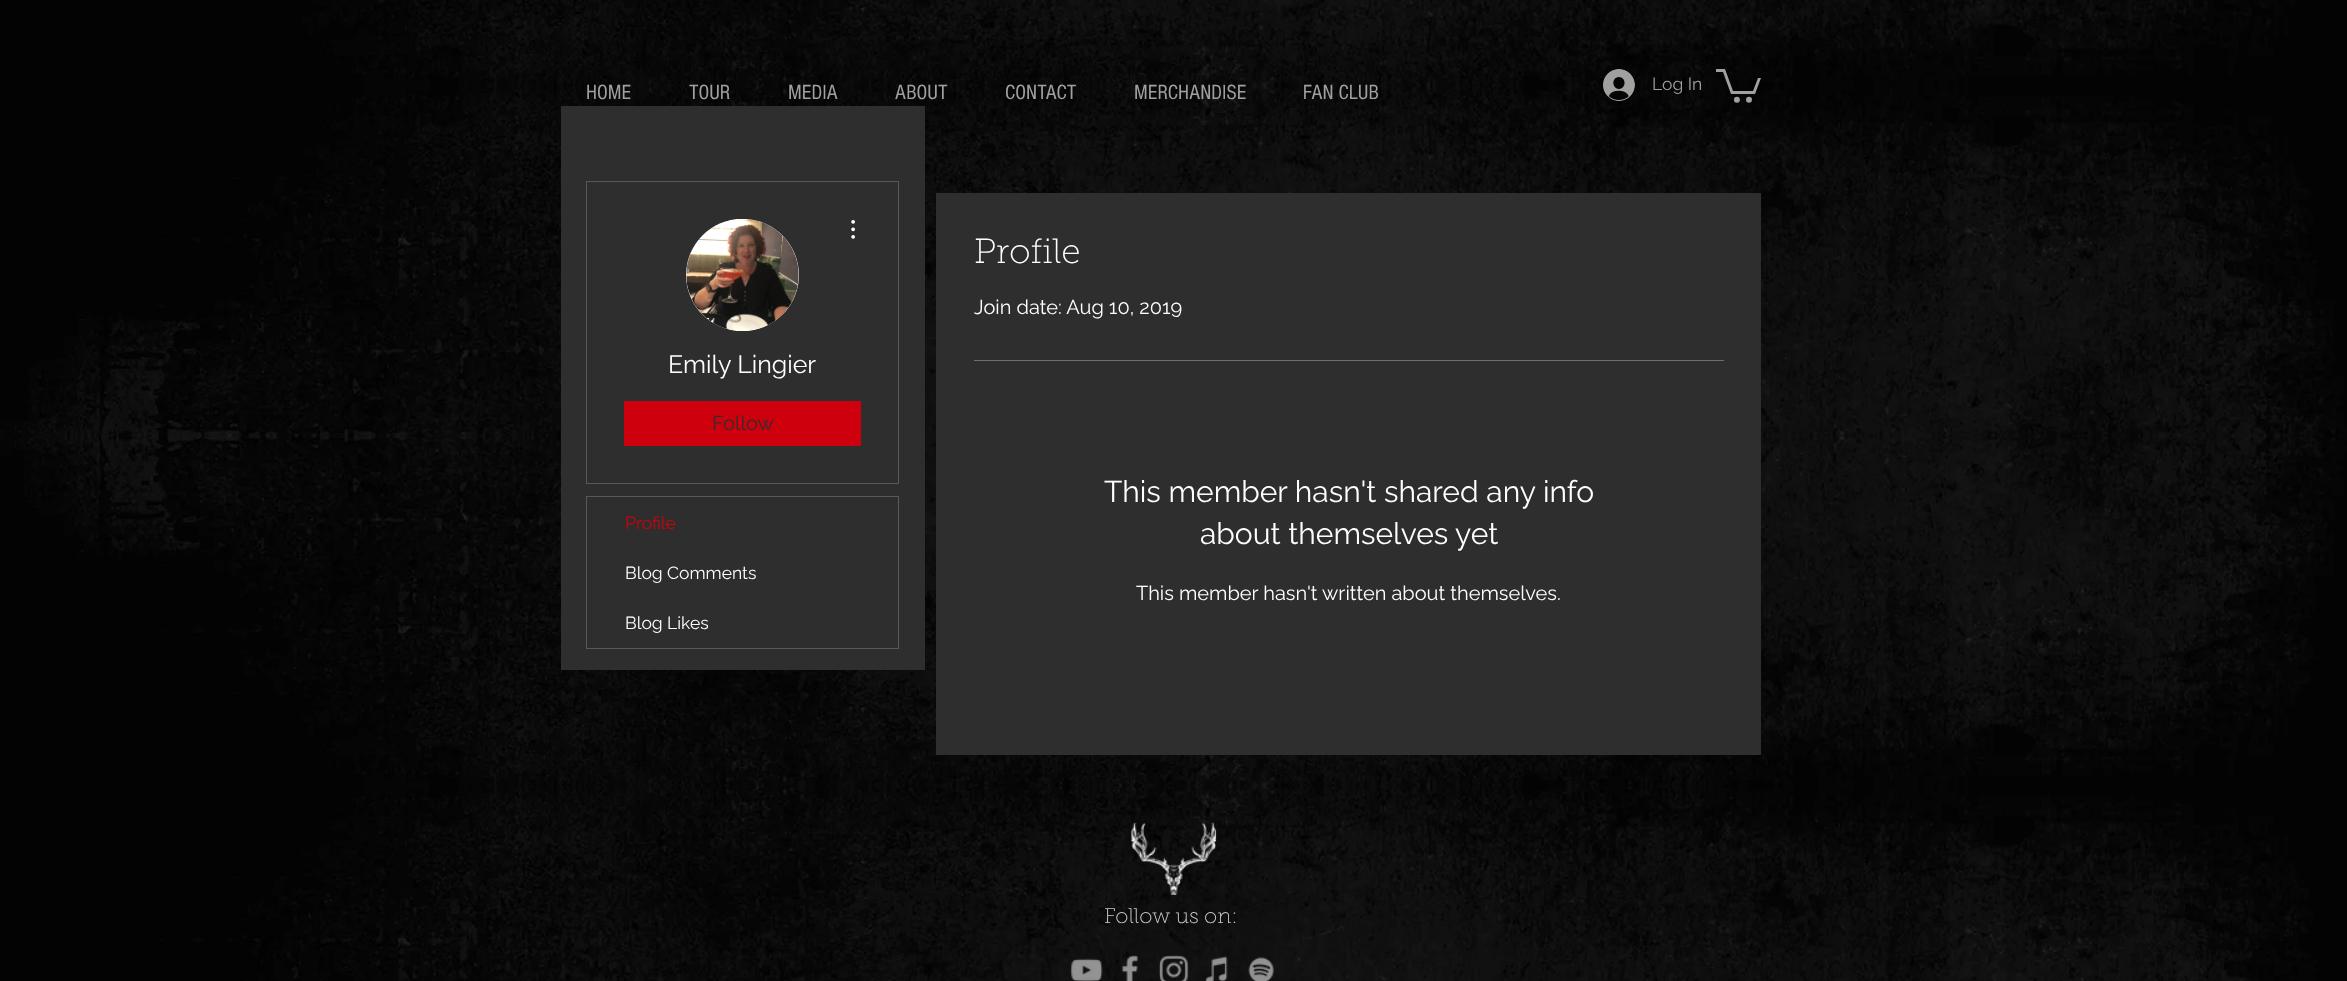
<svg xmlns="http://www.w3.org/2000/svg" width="2347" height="981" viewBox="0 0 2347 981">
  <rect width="100%" height="100%" fill="#ffffff"/>
  <image x="0" y="0" width="2347" height="981" href="img1.png"/>
  <text x="586" y="99" font-family="'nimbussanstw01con'" font-size="21.25" fill="#a0a09f">HOME</text>
  <text x="689" y="99" font-family="'nimbussanstw01con'" font-size="21.25" fill="#a0a09f">TOUR</text>
  <text x="788" y="99" font-family="'nimbussanstw01con'" font-size="21.25" fill="#a0a09f">MEDIA</text>
  <text x="895" y="99" font-family="'nimbussanstw01con'" font-size="21.25" fill="#a0a09f">ABOUT</text>
  <text x="1005" y="99" font-family="'nimbussanstw01con'" font-size="21.25" fill="#a0a09f">CONTACT</text>
  <text x="1134" y="99" font-family="'nimbussanstw01con'" font-size="21.25" fill="#a0a09f">MERCHANDISE</text>
  <text x="1303" y="99" font-family="'nimbussanstw01con'" font-size="21.25" fill="#a0a09f">FAN CLUB</text>
  <image x="1603" y="69" width="32" height="32" href="img2.png"/>
  <text x="1652" y="90" font-family="Raleway" font-size="17.5" fill="#a0a09f">Log In</text>
  <path d="M1761 78L1755 94H1731L1723 72H1716V69H1725L1733 91H1753L1758 78" fill="#a0a09f"/>
  <circle cx="1749" cy="99.8" r="3" fill="#a0a09f"/>
  <circle cx="1736.9" cy="99.8" r="3" fill="#a0a09f"/>
  <rect x="561" y="106" width="364" height="564" fill="#2f2e2e"/>
  <rect x="586.5" y="181.5" width="312" height="302" fill="none" stroke="#595858"/>
  <rect x="686" y="219" width="113" height="112" rx="56" fill="#d8d8d8"/>
  <image x="686" y="219" width="113" height="112" href="img3.png"/>
  <image x="851" y="220" width="4" height="19" href="img4.png"/>
  <text x="668" y="373" font-family="Raleway" font-size="25" fill="#ffffff">Emily Lingier</text>
  <rect x="624" y="401" width="237" height="45" fill="#cf000e"/>
  <text x="712" y="430" font-family="Raleway" font-size="20" fill="#2f2e2e">Follow</text>
  <rect x="586.5" y="496.5" width="312" height="152" fill="none" stroke="#595858"/>
  <text x="625" y="529" font-family="Raleway" font-size="17.5" fill="#cf000e">Profile</text>
  <text x="625" y="579" font-family="Raleway" font-size="17.5" fill="#ffffff">Blog Comments</text>
  <text x="625" y="629" font-family="Raleway" font-size="17.5" fill="#ffffff">Blog Likes</text>
  <rect x="936" y="193" width="825" height="562" fill="#2f2e2e"/>
  <text x="974" y="263" font-family="'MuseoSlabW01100'" font-size="35" font-weight="100" fill="#ffffff">Profile</text>
  <text x="974" y="314" font-family="Raleway" font-size="20" fill="#ffffff">Join date: Aug 10, 2019</text>
  <rect x="974" y="360" width="750" height="1" fill="#6d6d6d"/>
  <text x="1104" y="502" font-family="Raleway" font-size="30" fill="#ffffff">This member hasn't shared any info</text>
  <text x="1200" y="544" font-family="Raleway" font-size="30" fill="#ffffff">about themselves yet</text>
  <text x="1136" y="600" font-family="Raleway" font-size="20" fill="#ffffff">This member hasn't written about themselves.</text>
  <image x="1131" y="822" width="86" height="73" href="img5.png"/>
  <text x="1104" y="923" font-family="'MuseoSlabW01100'" font-size="21.25" font-weight="100" fill="#cccccc">Follow us on:</text>
  <image x="1070" y="958" width="33" height="23" href="img6.png"/>
  <image x="1122" y="955" width="16" height="26" href="img7.png"/>
  <image x="1158" y="955" width="31" height="26" href="img8.png"/>
  <image x="1205" y="956" width="23" height="25" href="img9.png"/>
  <image x="1248" y="957" width="26" height="24" href="img10.png"/>
</svg>
